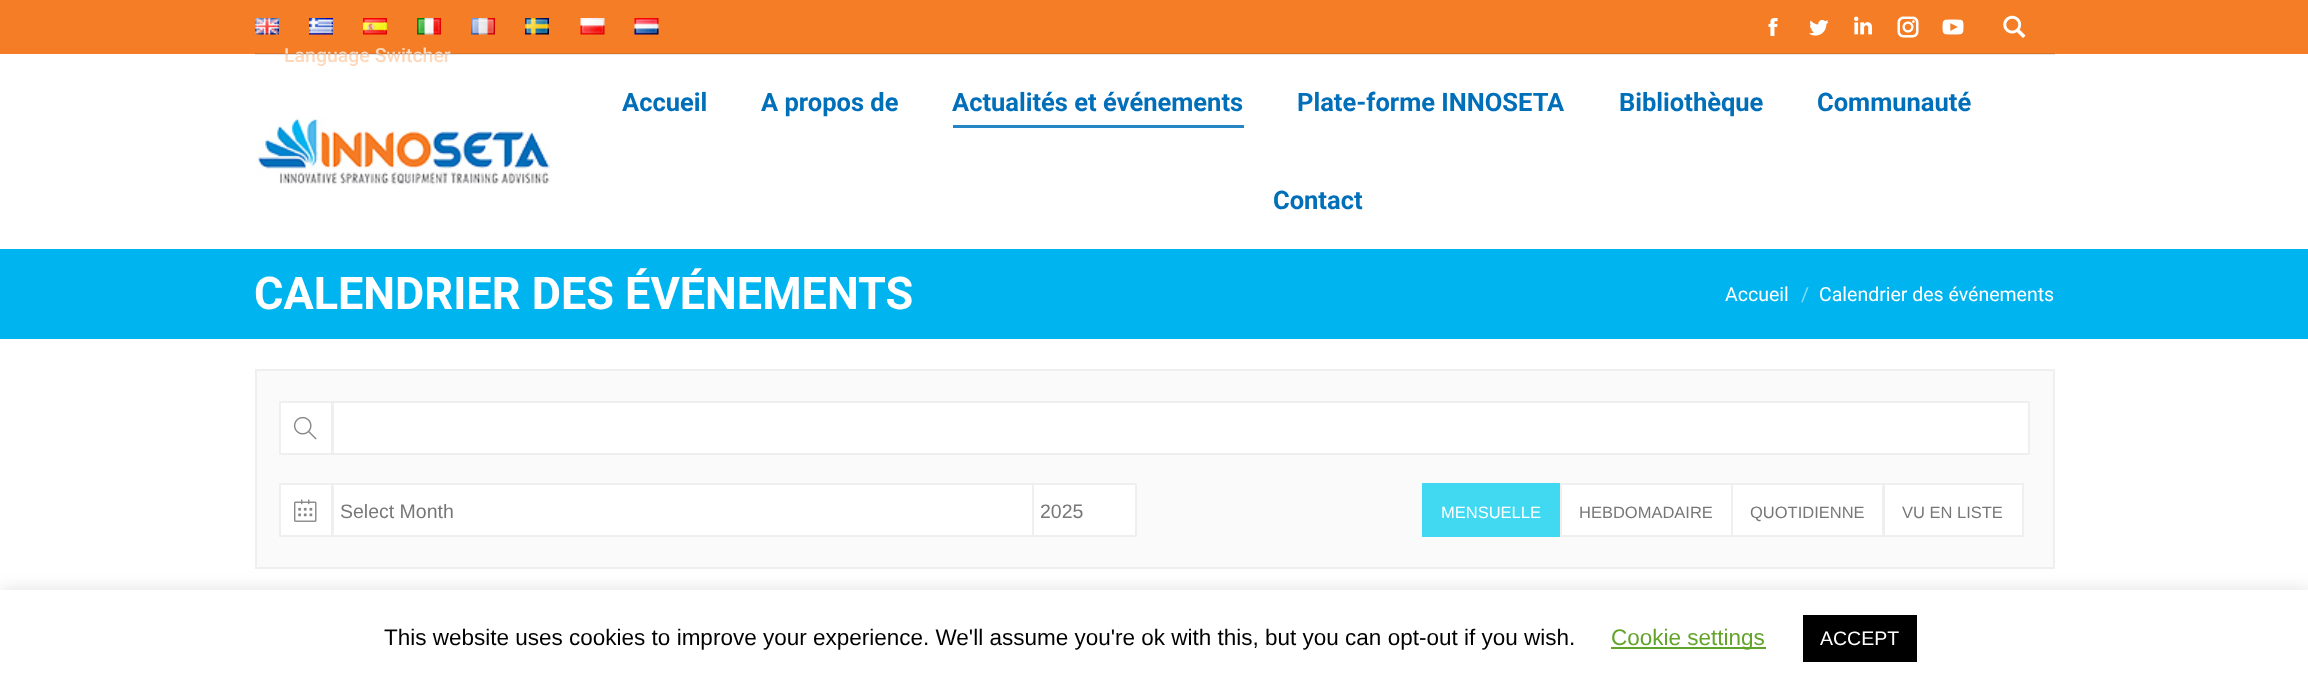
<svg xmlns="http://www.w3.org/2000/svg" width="2308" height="687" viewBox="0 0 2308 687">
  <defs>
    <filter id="blur1" x="-50%" y="-200%" width="200%" height="500%"><feGaussianBlur stdDeviation="7.5"/></filter>
  </defs>
  <rect width="100%" height="100%" fill="#ffffff"/>
  <rect x="0" y="0" width="2308" height="54" fill="#f47d25"/>
  <image x="1768" y="18" width="10" height="18" href="img1.png"/>
  <image x="1809" y="19" width="20" height="17" href="img2.png"/>
  <image x="1854" y="16" width="18" height="19" href="img3.png"/>
  <image x="1897" y="16" width="22" height="22" href="img4.png"/>
  <image x="1942" y="19" width="22" height="16" href="img5.png"/>
  <image x="2003" y="15" width="23" height="23" href="img6.png"/>
  <image x="255" y="18" width="24" height="17" href="img7.png"/>
  <image x="309" y="18" width="24" height="17" href="img8.png"/>
  <image x="363" y="18" width="24" height="17" href="img9.png"/>
  <image x="417" y="18" width="24" height="17" href="img10.png"/>
  <image x="471" y="18" width="24" height="17" href="img11.png"/>
  <image x="525" y="18" width="24" height="17" href="img12.png"/>
  <image x="580" y="18" width="25" height="17" href="img13.png"/>
  <image x="634" y="18" width="25" height="17" href="img14.png"/>
  <text x="284" y="62" font-family="Roboto" font-size="19.5" font-weight="500" fill="#fcd8bd">Language Switcher</text>
  <rect x="255" y="53" width="1800" height="2" fill="#333333" fill-opacity="0.12"/>
  <image x="257" y="116" width="294" height="69" href="img15.png"/>
  <text x="622" y="111" font-family="Roboto" font-size="25.5" font-weight="bold" fill="#006fba">Accueil</text>
  <text x="761" y="111" font-family="Roboto" font-size="25.5" font-weight="bold" fill="#006fba">A propos de</text>
  <text x="952" y="111" font-family="Roboto" font-size="25.5" font-weight="bold" fill="#006fba">Actualités et événements</text>
  <rect x="953" y="125" width="291" height="3" fill="#2685c4"/>
  <text x="1297" y="111" font-family="Roboto" font-size="25.5" font-weight="bold" fill="#006fba">Plate-forme INNOSETA</text>
  <text x="1619" y="111" font-family="Roboto" font-size="25.5" font-weight="bold" fill="#006fba">Bibliothèque</text>
  <text x="1817" y="111" font-family="Roboto" font-size="25.5" font-weight="bold" fill="#006fba">Communauté</text>
  <text x="1273" y="209" font-family="Roboto" font-size="25.5" font-weight="bold" fill="#006fba">Contact</text>
  <rect x="0" y="249" width="2308" height="90" fill="#00b5ef"/>
  <text x="254" y="309" font-family="Roboto" font-size="45" font-weight="bold" fill="#ffffff">CALENDRIER DES ÉVÉNEMENTS</text>
  <text x="1725" y="301" font-family="Roboto" font-size="19.5" fill="#ffffff">Accueil</text>
  <text x="1801" y="301" font-family="Roboto" font-size="19.5" fill="#80daf7">/</text>
  <text x="1819" y="301" font-family="Roboto" font-size="19.5" fill="#ffffff">Calendrier des événements</text>
  <rect x="256" y="370" width="1798" height="198" fill="#fafafa" stroke="#efefef" stroke-width="2"/>
  <rect x="280" y="402" width="52" height="52" fill="#ffffff" stroke="#efefef" stroke-width="2"/>
  <image x="293" y="416" width="24" height="24" href="img16.png"/>
  <rect x="333" y="402" width="1696" height="52" rx="0.5" fill="#ffffff" stroke="#efefef" stroke-width="2"/>
  <rect x="280" y="484" width="52" height="52" fill="#ffffff" stroke="#efefef" stroke-width="2"/>
  <image x="294" y="499" width="23" height="23" href="img17.png"/>
  <rect x="333" y="484" width="700" height="52" rx="0.5" fill="#ffffff" stroke="#efefef" stroke-width="2"/>
  <text x="340" y="518" font-family="Liberation Sans" font-size="19.5" fill="#777777">Select Month</text>
  <rect x="1033" y="484" width="103" height="52" rx="0.5" fill="#ffffff" stroke="#efefef" stroke-width="2"/>
  <text x="1040" y="518" font-family="Liberation Sans" font-size="19.5" fill="#777777">2025</text>
  <rect x="1422" y="483" width="138" height="54" fill="#40d9f1"/>
  <text x="1441" y="518" font-family="Liberation Sans" font-size="16.5" fill="#ffffff">MENSUELLE</text>
  <rect x="1561" y="484" width="171" height="52" fill="#ffffff" stroke="#efefef" stroke-width="2"/>
  <text x="1579" y="518" font-family="Liberation Sans" font-size="16.5" fill="#777777">HEBDOMADAIRE</text>
  <rect x="1732" y="484" width="151" height="52" fill="#ffffff" stroke="#efefef" stroke-width="2"/>
  <text x="1750" y="518" font-family="Liberation Sans" font-size="16.5" fill="#777777">QUOTIDIENNE</text>
  <rect x="1884" y="484" width="139" height="52" fill="#ffffff" stroke="#efefef" stroke-width="2"/>
  <text x="1902" y="518" font-family="Liberation Sans" font-size="16.5" fill="#777777">VU EN LISTE</text>
  <rect x="0" y="588" width="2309" height="98" fill="#acabab" fill-opacity="0.3" filter="url(#blur1)"/>
  <rect x="0" y="590" width="2308" height="97" fill="#ffffff"/>
  <text x="384" y="645" font-family="Liberation Sans" font-size="22.5" fill="#000000">This website uses cookies to improve your experience. We'll assume you're ok with this, but you can opt-out if you wish.</text>
  <rect x="1611" y="647" width="155" height="2" fill="#62a329"/>
  <text x="1611" y="645" font-family="Liberation Sans" font-size="22.5" fill="#62a329">Cookie settings</text>
  <rect x="1803" y="615" width="114" height="47" fill="#000000"/>
  <text x="1820" y="645" font-family="Liberation Sans" font-size="19.5" fill="#ffffff">ACCEPT</text>
</svg>
